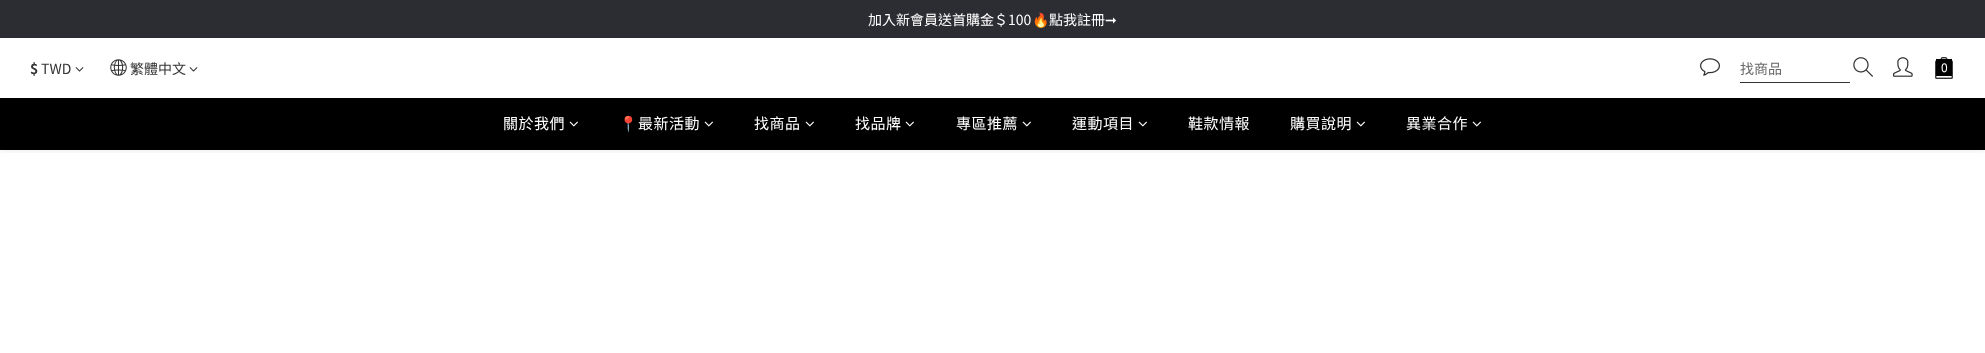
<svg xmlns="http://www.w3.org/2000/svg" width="1985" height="353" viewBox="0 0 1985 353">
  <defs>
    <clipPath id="clip1"><rect x="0" y="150" width="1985" height="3"/></clipPath>
    <filter id="blur1" x="-50%" y="-200%" width="200%" height="500%"><feGaussianBlur stdDeviation="3"/></filter>
  </defs>
  <rect width="100%" height="100%" fill="#ffffff"/>
  <rect x="0" y="0" width="1985" height="38" fill="#2c2d33"/>
  <text x="868" y="25" font-family="Noto Sans TC" font-size="14" fill="#ffffff">加入新會員送首購金＄100</text>
  <text x="1032" y="25" font-family="Noto Color Emoji" font-size="14" fill="#ffffff">🔥</text>
  <text x="1049" y="25" font-family="Noto Sans TC" font-size="14" fill="#ffffff">點我註冊</text>
  <text x="1105" y="25" font-family="DejaVu Sans" font-size="14" fill="#ffffff">➞</text>
  <g clip-path="url(#clip1)">
    <rect x="0" y="40" width="1985" height="112" fill="#000000" fill-opacity="0.06" filter="url(#blur1)"/>
  </g>
  <text x="30" y="74" font-family="Noto Sans TC" font-size="14" font-weight="bold" fill="#333333">$</text>
  <text x="41" y="74" font-family="Noto Sans TC" font-size="14" fill="#333333">TWD</text>
  <image x="75" y="67" width="9" height="5" href="img1.png"/>
  <image x="110" y="59" width="17" height="17" href="img2.png"/>
  <text x="130" y="74" font-family="Noto Sans TC" font-size="14" fill="#333333">繁體中文</text>
  <image x="189" y="67" width="9" height="5" href="img1.png"/>
  <image x="1700" y="58" width="20" height="18" href="img3.png"/>
  <rect x="1740" y="82" width="110" height="1" fill="#333333"/>
  <text x="1740" y="74" font-family="Noto Sans TC" font-size="14" fill="#666666">找商品</text>
  <image x="1853" y="57" width="20" height="20" href="img4.png"/>
  <image x="1893" y="57" width="20" height="20" href="img5.png"/>
  <image x="1935" y="57" width="18" height="22" href="img6.png"/>
  <rect x="1936" y="59" width="16" height="17" fill="#000000"/>
  <text x="1941" y="72" font-family="Noto Sans TC" font-size="12" fill="#ffffff">0</text>
  <rect x="0" y="98" width="1985" height="52" fill="#000000"/>
  <text x="503" y="129" font-family="Noto Sans TC" font-size="15" letter-spacing="0.5" fill="#ffffff">關於我們</text>
  <image x="569" y="121" width="9" height="6" href="img7.png"/>
  <text x="619" y="129" font-family="'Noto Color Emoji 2'" font-size="15" letter-spacing="0.5" fill="#ffffff">📍</text>
  <text x="638" y="129" font-family="Noto Sans TC" font-size="15" letter-spacing="0.5" fill="#ffffff">最新活動</text>
  <image x="704" y="121" width="9" height="6" href="img7.png"/>
  <text x="754" y="129" font-family="Noto Sans TC" font-size="15" letter-spacing="0.5" fill="#ffffff">找商品</text>
  <image x="805" y="121" width="9" height="6" href="img7.png"/>
  <text x="855" y="129" font-family="Noto Sans TC" font-size="15" letter-spacing="0.5" fill="#ffffff">找品牌</text>
  <image x="905" y="121" width="9" height="6" href="img7.png"/>
  <text x="956" y="129" font-family="Noto Sans TC" font-size="15" letter-spacing="0.5" fill="#ffffff">專區推薦</text>
  <image x="1022" y="121" width="9" height="6" href="img7.png"/>
  <text x="1072" y="129" font-family="Noto Sans TC" font-size="15" letter-spacing="0.5" fill="#ffffff">運動項目</text>
  <image x="1138" y="121" width="9" height="6" href="img7.png"/>
  <text x="1188" y="129" font-family="Noto Sans TC" font-size="15" letter-spacing="0.5" fill="#ffffff">鞋款情報</text>
  <text x="1290" y="129" font-family="Noto Sans TC" font-size="15" letter-spacing="0.5" fill="#ffffff">購買說明</text>
  <image x="1356" y="121" width="9" height="6" href="img7.png"/>
  <text x="1406" y="129" font-family="Noto Sans TC" font-size="15" letter-spacing="0.5" fill="#ffffff">異業合作</text>
  <image x="1472" y="121" width="9" height="6" href="img7.png"/>
</svg>
